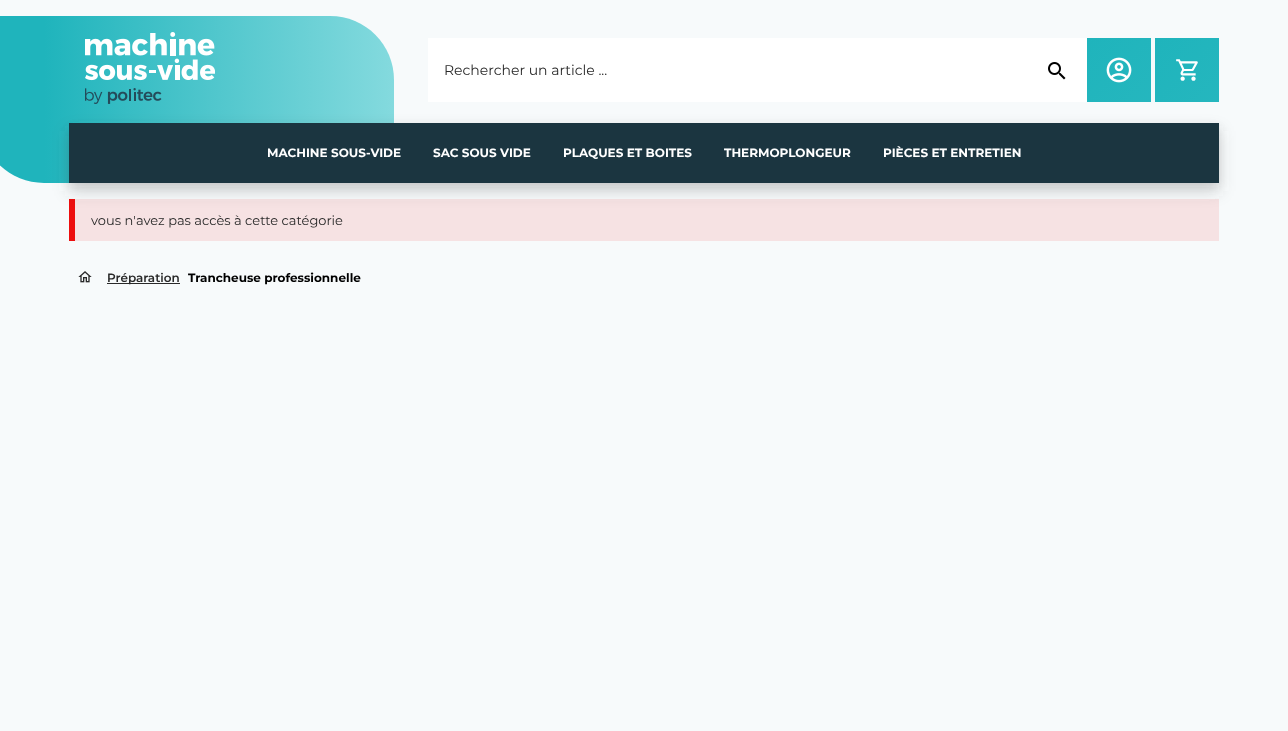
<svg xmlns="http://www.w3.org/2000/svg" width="1288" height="731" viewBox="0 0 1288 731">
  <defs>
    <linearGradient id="g1" gradientUnits="userSpaceOnUse" x1="44" y1="100" x2="394" y2="99"><stop offset="0" stop-color="#1fb4bc"/><stop offset="1" stop-color="#84dade"/></linearGradient>
    <linearGradient id="g2" gradientUnits="userSpaceOnUse" x1="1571" y1="-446" x2="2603" y2="586"><stop offset="0" stop-color="#1fb4bc"/><stop offset="1" stop-color="#84dade"/></linearGradient>
    <linearGradient id="g3" gradientUnits="userSpaceOnUse" x1="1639" y1="-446" x2="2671" y2="586"><stop offset="0" stop-color="#1fb4bc"/><stop offset="1" stop-color="#84dade"/></linearGradient>
    <filter id="blur1" x="-50%" y="-200%" width="200%" height="500%"><feGaussianBlur stdDeviation="4"/></filter>
    <filter id="blur2" x="-50%" y="-200%" width="200%" height="500%"><feGaussianBlur stdDeviation="8"/></filter>
  </defs>
  <rect width="100%" height="100%" fill="#f7fafb"/>
  <path d="M-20 16H44V183C8.5 183-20 154.5-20 119Z" fill="#1fb4bc"/>
  <path d="M44 16H330C365.5 16 394 44.5 394 80V183H44Z" fill="url(#g1)"/>
  <image x="85" y="32" width="130" height="72" href="img1.png"/>
  <rect x="428" y="38" width="659" height="64" fill="#ffffff"/>
  <text x="444" y="75" font-family="Montserrat" font-size="14" fill="#292929">Rechercher un article ...</text>
  <image x="1048" y="62" width="18" height="18" href="img2.png"/>
  <rect x="1087" y="38" width="64" height="64" fill="url(#g2)"/>
  <image x="1106" y="57" width="26" height="26" href="img3.png"/>
  <rect x="1155" y="38" width="64" height="64" fill="url(#g3)"/>
  <image x="1176" y="59" width="22" height="22" href="img4.png"/>
  <rect x="75" y="199" width="1144" height="42" fill="#f6e2e3"/>
  <rect x="69" y="199" width="6" height="42" fill="#ed0e0e"/>
  <rect x="69" y="127" width="1150" height="60" fill="#4f4f4f" fill-opacity="0.08" filter="url(#blur1)"/>
  <rect x="69" y="131" width="1150" height="60" fill="#4f4f4f" fill-opacity="0.24" filter="url(#blur2)"/>
  <rect x="69" y="123" width="1150" height="60" fill="#1b3540"/>
  <text x="267" y="157" font-family="Montserrat" font-size="12" font-weight="bold" fill="#ffffff">MACHINE SOUS-VIDE</text>
  <text x="433" y="157" font-family="Montserrat" font-size="12" font-weight="bold" fill="#ffffff">SAC SOUS VIDE</text>
  <text x="563" y="157" font-family="Montserrat" font-size="12" font-weight="bold" fill="#ffffff">PLAQUES ET BOITES</text>
  <text x="724" y="157" font-family="Montserrat" font-size="12" font-weight="bold" fill="#ffffff">THERMOPLONGEUR</text>
  <text x="883" y="157" font-family="Montserrat" font-size="12" font-weight="bold" fill="#ffffff">PIÈCES ET ENTRETIEN</text>
  <text x="91" y="225" font-family="Montserrat" font-size="13" fill="#292929">vous n'avez pas accès à cette catégorie</text>
  <image x="78" y="271" width="14" height="12" href="img5.png"/>
  <rect x="107" y="283" width="73" height="1" fill="#292929"/>
  <text x="107" y="282" font-family="Montserrat" font-size="12" font-weight="600" fill="#292929">Préparation</text>
  <text x="188" y="282" font-family="Montserrat" font-size="12" font-weight="bold" fill="#000000">Trancheuse professionnelle</text>
</svg>
